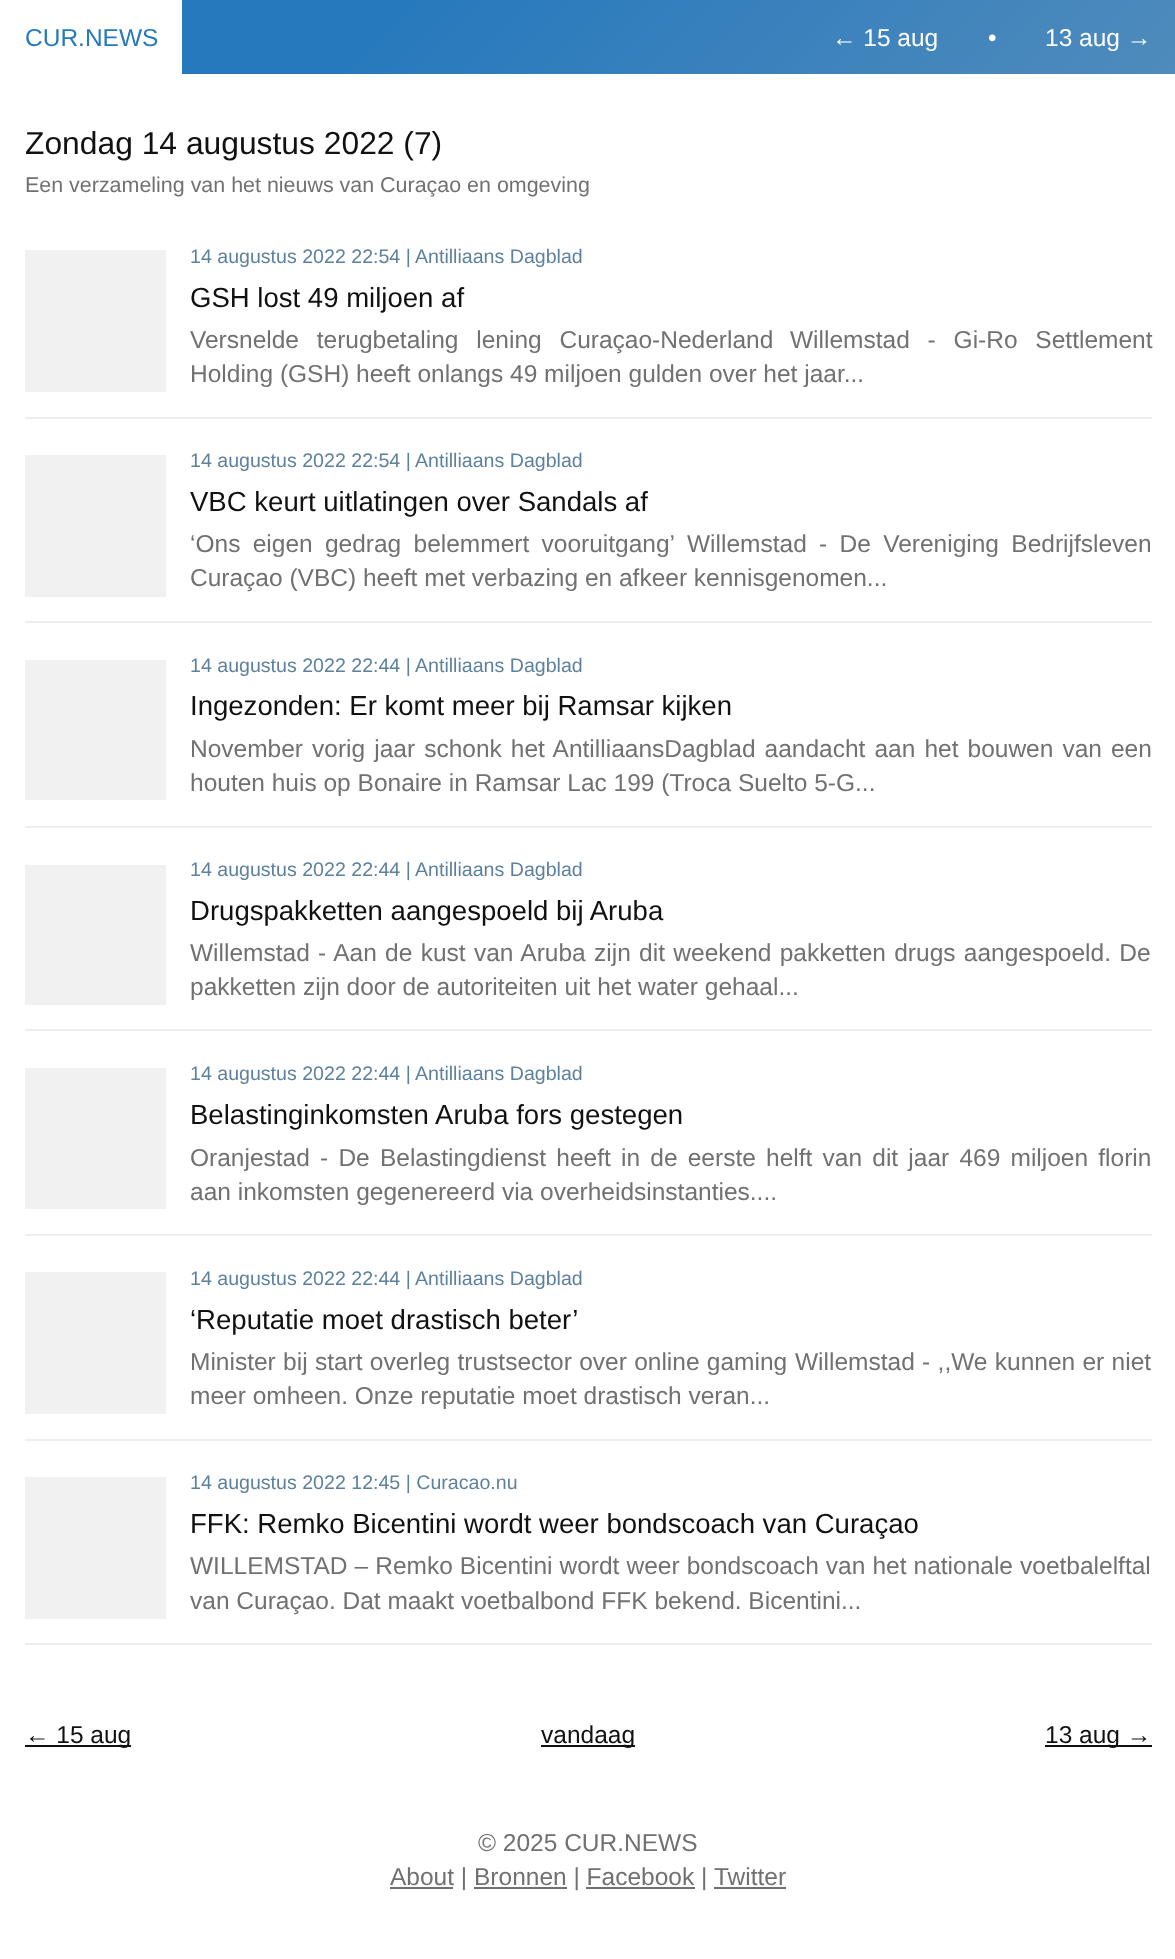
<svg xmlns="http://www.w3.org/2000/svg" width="1175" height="1959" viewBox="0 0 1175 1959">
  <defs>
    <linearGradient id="g1" gradientUnits="userSpaceOnUse" x1="276" y1="-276" x2="900" y2="349"><stop offset="0.33" stop-color="#2779bd"/><stop offset="1" stop-color="#4f8bbc"/></linearGradient>
  </defs>
  <rect width="100%" height="100%" fill="#ffffff"/>
  <rect x="182" y="0" width="993" height="74" fill="url(#g1)"/>
  <text x="25" y="46" font-family="Liberation Sans" font-size="24.5" fill="#2779bd">CUR.NEWS</text>
  <text x="832" y="46" font-family="Liberation Sans" font-size="24.5" fill="#ffffff">← 15 aug</text>
  <text x="988" y="46" font-family="Liberation Sans" font-size="24.5" fill="#ffffff">•</text>
  <text x="1045" y="46" font-family="Liberation Sans" font-size="24.5" fill="#ffffff">13 aug →</text>
  <text x="25" y="154" font-family="Liberation Sans" font-size="31.8" fill="#111111">Zondag 14 augustus 2022 (7)</text>
  <text x="25" y="192" font-family="Liberation Sans" font-size="21.45" fill="#717171">Een verzameling van het nieuws van Curaçao en omgeving</text>
  <rect x="25" y="417" width="1127" height="2" fill="#eeeeee"/>
  <rect x="25" y="250" width="141" height="142" fill="#f1f1f1"/>
  <text x="190" y="263" font-family="Liberation Sans" font-size="19.6" fill="#5e819e">14 augustus 2022 22:54 |</text>
  <text x="415" y="263" font-family="Liberation Sans" font-size="19.6" fill="#5e819e">Antilliaans Dagblad</text>
  <text x="190" y="307" font-family="Liberation Sans" font-size="27.55" fill="#111111">GSH lost 49 miljoen af</text>
  <text x="190" y="348" word-spacing="11" font-family="Liberation Sans" font-size="24.5" fill="#717171">Versnelde terugbetaling lening Curaçao-Nederland</text>
  <text x="790" y="348" word-spacing="11" font-family="Liberation Sans" font-size="24.5" fill="#717171">Willemstad - Gi-Ro Settlement</text>
  <text x="190" y="382" font-family="Liberation Sans" font-size="24.5" fill="#717171">Holding (GSH) heeft onlangs 49 miljoen gulden over het jaar...</text>
  <rect x="25" y="621" width="1127" height="2" fill="#eeeeee"/>
  <rect x="25" y="455" width="141" height="142" fill="#f1f1f1"/>
  <text x="190" y="467" font-family="Liberation Sans" font-size="19.6" fill="#5e819e">14 augustus 2022 22:54 |</text>
  <text x="415" y="467" font-family="Liberation Sans" font-size="19.6" fill="#5e819e">Antilliaans Dagblad</text>
  <text x="190" y="511" font-family="Liberation Sans" font-size="27.55" fill="#111111">VBC keurt uitlatingen over Sandals af</text>
  <text x="190" y="552" word-spacing="5.5" font-family="Liberation Sans" font-size="24.5" fill="#717171">‘Ons eigen gedrag belemmert vooruitgang’</text>
  <text x="687" y="552" word-spacing="5.5" font-family="Liberation Sans" font-size="24.5" fill="#717171">Willemstad - De Vereniging Bedrijfsleven</text>
  <text x="190" y="586" font-family="Liberation Sans" font-size="24.5" fill="#717171">Curaçao (VBC) heeft met verbazing en afkeer kennisgenomen...</text>
  <rect x="25" y="826" width="1127" height="2" fill="#eeeeee"/>
  <rect x="25" y="660" width="141" height="140" fill="#f1f1f1"/>
  <text x="190" y="672" font-family="Liberation Sans" font-size="19.6" fill="#5e819e">14 augustus 2022 22:44 |</text>
  <text x="415" y="672" font-family="Liberation Sans" font-size="19.6" fill="#5e819e">Antilliaans Dagblad</text>
  <text x="190" y="715" font-family="Liberation Sans" font-size="27.55" fill="#111111">Ingezonden: Er komt meer bij Ramsar kijken</text>
  <text x="190" y="757" word-spacing="2.25" font-family="Liberation Sans" font-size="24.5" fill="#717171">November vorig jaar schonk het AntilliaansDagblad aandacht aan het bouwen van een</text>
  <text x="190" y="791" font-family="Liberation Sans" font-size="24.5" fill="#717171">houten huis op Bonaire in Ramsar Lac 199 (Troca Suelto 5-G...</text>
  <rect x="25" y="1029" width="1127" height="2" fill="#eeeeee"/>
  <rect x="25" y="865" width="141" height="140" fill="#f1f1f1"/>
  <text x="190" y="876" font-family="Liberation Sans" font-size="19.6" fill="#5e819e">14 augustus 2022 22:44 |</text>
  <text x="415" y="876" font-family="Liberation Sans" font-size="19.6" fill="#5e819e">Antilliaans Dagblad</text>
  <text x="190" y="920" font-family="Liberation Sans" font-size="27.55" fill="#111111">Drugspakketten aangespoeld bij Aruba</text>
  <text x="190" y="961" word-spacing="1.5" font-family="Liberation Sans" font-size="24.5" fill="#717171">Willemstad - Aan de kust van Aruba zijn dit weekend pakketten drugs aangespoeld. De</text>
  <text x="190" y="995" font-family="Liberation Sans" font-size="24.5" fill="#717171">pakketten zijn door de autoriteiten uit het water gehaal...</text>
  <rect x="25" y="1234" width="1127" height="2" fill="#eeeeee"/>
  <rect x="25" y="1068" width="141" height="141" fill="#f1f1f1"/>
  <text x="190" y="1080" font-family="Liberation Sans" font-size="19.6" fill="#5e819e">14 augustus 2022 22:44 |</text>
  <text x="415" y="1080" font-family="Liberation Sans" font-size="19.6" fill="#5e819e">Antilliaans Dagblad</text>
  <text x="190" y="1124" font-family="Liberation Sans" font-size="27.55" fill="#111111">Belastinginkomsten Aruba fors gestegen</text>
  <text x="190" y="1166" word-spacing="3.4" font-family="Liberation Sans" font-size="24.5" fill="#717171">Oranjestad - De Belastingdienst heeft in de eerste helft van dit jaar 469 miljoen florin</text>
  <text x="190" y="1200" font-family="Liberation Sans" font-size="24.5" fill="#717171">aan inkomsten gegenereerd via overheidsinstanties....</text>
  <rect x="25" y="1439" width="1127" height="2" fill="#eeeeee"/>
  <rect x="25" y="1272" width="141" height="142" fill="#f1f1f1"/>
  <text x="190" y="1285" font-family="Liberation Sans" font-size="19.6" fill="#5e819e">14 augustus 2022 22:44 |</text>
  <text x="415" y="1285" font-family="Liberation Sans" font-size="19.6" fill="#5e819e">Antilliaans Dagblad</text>
  <text x="190" y="1329" font-family="Liberation Sans" font-size="27.55" fill="#111111">‘Reputatie moet drastisch beter’</text>
  <text x="190" y="1370" word-spacing="0.5" font-family="Liberation Sans" font-size="24.5" fill="#717171">Minister bij start overleg trustsector over online gaming</text>
  <text x="795" y="1370" word-spacing="0.5" font-family="Liberation Sans" font-size="24.5" fill="#717171">Willemstad - ,,We kunnen er niet</text>
  <text x="190" y="1404" font-family="Liberation Sans" font-size="24.5" fill="#717171">meer omheen. Onze reputatie moet drastisch veran...</text>
  <rect x="25" y="1643" width="1127" height="2" fill="#eeeeee"/>
  <rect x="25" y="1477" width="141" height="142" fill="#f1f1f1"/>
  <text x="190" y="1489" font-family="Liberation Sans" font-size="19.6" fill="#5e819e">14 augustus 2022 12:45 | Curacao.nu</text>
  <text x="190" y="1533" font-family="Liberation Sans" font-size="27.55" fill="#111111">FFK: Remko Bicentini wordt weer bondscoach van Curaçao</text>
  <text x="190" y="1574" word-spacing="0.25" font-family="Liberation Sans" font-size="24.5" fill="#717171">WILLEMSTAD – Remko Bicentini wordt weer bondscoach van het nationale voetbalelftal</text>
  <text x="190" y="1609" font-family="Liberation Sans" font-size="24.5" fill="#717171">van Curaçao. Dat maakt voetbalbond FFK bekend. Bicentini...</text>
  <rect x="25" y="1745" width="106" height="2" fill="#111111"/>
  <text x="25" y="1743" font-family="Liberation Sans" font-size="24.5" fill="#111111">← 15 aug</text>
  <rect x="541" y="1745" width="94" height="2" fill="#111111"/>
  <text x="541" y="1743" font-family="Liberation Sans" font-size="24.5" fill="#111111">vandaag</text>
  <rect x="1045" y="1745" width="107" height="2" fill="#111111"/>
  <text x="1045" y="1743" font-family="Liberation Sans" font-size="24.5" fill="#111111">13 aug →</text>
  <text x="478" y="1851" font-family="Liberation Sans" font-size="24.5" fill="#717171">© 2025 CUR.NEWS</text>
  <rect x="390" y="1887" width="63" height="2" fill="#717171"/>
  <text x="390" y="1885" font-family="Liberation Sans" font-size="24.5" fill="#717171">About | Bronnen | Facebook |</text>
  <text x="714" y="1885" font-family="Liberation Sans" font-size="24.5" fill="#717171">Twitter</text>
  <rect x="714" y="1887" width="72" height="2" fill="#717171"/>
  <rect x="474" y="1887" width="93" height="2" fill="#717171"/>
  <rect x="586" y="1887" width="109" height="2" fill="#717171"/>
</svg>
